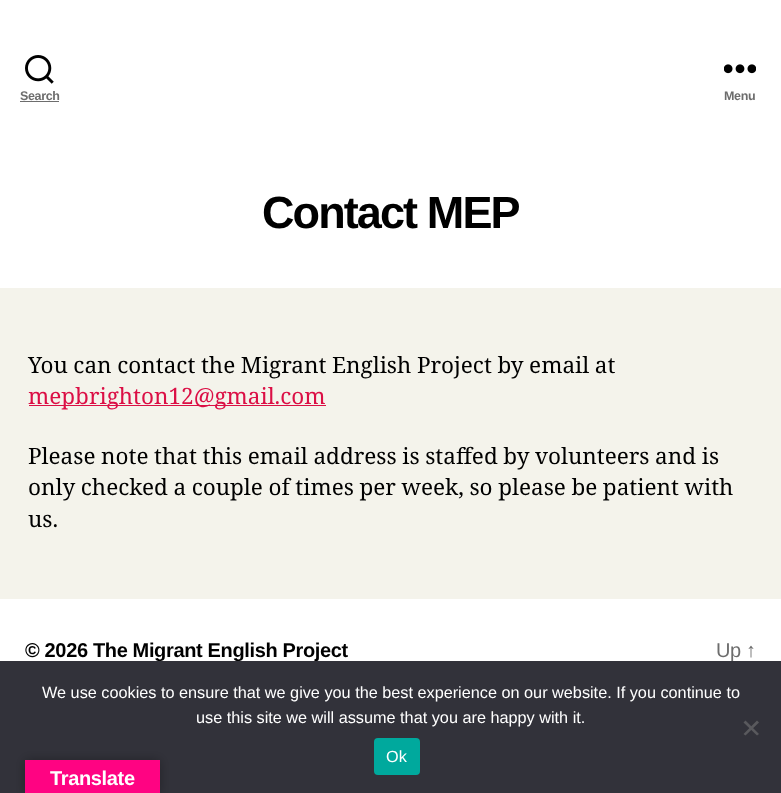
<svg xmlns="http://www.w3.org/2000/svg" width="781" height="793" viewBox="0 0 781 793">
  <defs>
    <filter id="blur1" x="-50%" y="-200%" width="200%" height="500%"><feGaussianBlur stdDeviation="5.5"/></filter>
  </defs>
  <rect width="100%" height="100%" fill="#f4f3eb"/>
  <rect x="0" y="0" width="781" height="288" fill="#ffffff"/>
  <image x="25" y="55" width="29" height="29" href="img1.png"/>
  <text x="20" y="100" font-family="Liberation Sans" font-size="12.5" font-weight="bold" letter-spacing="-0.35" fill="#6d6d6d">Search</text>
  <rect x="20" y="101" width="39" height="1" fill="#6d6d6d"/>
  <image x="724" y="64" width="32" height="10" href="img2.png"/>
  <text x="724" y="100" font-family="Liberation Sans" font-size="12.5" font-weight="bold" letter-spacing="-0.35" fill="#6d6d6d">Menu</text>
  <text x="262" y="228" font-family="Liberation Sans" font-size="45" font-weight="bold" letter-spacing="-1.9" fill="#000000">Contact MEP</text>
  <text x="28" y="373" word-spacing="-0.25" font-family="Noto Serif" font-size="22.5" fill="#000000">You can contact the Migrant English Project by email at</text>
  <rect x="29" y="405" width="297" height="1" fill="#db0f45"/>
  <text x="28" y="404" font-family="Noto Serif" font-size="22.5" fill="#db0f45">mepbrighton12@gmail.com</text>
  <text x="28" y="464" word-spacing="-0.25" font-family="Noto Serif" font-size="22.5" fill="#000000">Please note that this email address is staffed by volunteers and is</text>
  <text x="28" y="495" word-spacing="-0.25" font-family="Noto Serif" font-size="22.5" fill="#000000">only checked a couple of times per week, so please be patient with</text>
  <text x="28" y="527" font-family="Noto Serif" font-size="22.5" fill="#000000">us.</text>
  <rect x="0" y="599" width="781" height="62" fill="#ffffff"/>
  <text x="25" y="657" font-family="Liberation Sans" font-size="20" font-weight="bold" letter-spacing="-0.35" fill="#000000">© 2026 The Migrant English Project</text>
  <text x="716" y="657" font-family="Liberation Sans" font-size="20" letter-spacing="-0.35" fill="#6d6d6d">Up ↑</text>
  <rect x="0" y="661" width="781" height="132" fill="#32323a"/>
  <text x="42" y="698" font-family="Liberation Sans" font-size="16.25" fill="#ffffff">We use cookies to ensure that we give you the best experience on our website. If you continue to</text>
  <text x="196" y="723" font-family="Liberation Sans" font-size="16.25" fill="#ffffff">use this site we will assume that you are happy with it.</text>
  <path d="M757 720.5L759 722.5L745.5 735.5L743.5 734Z" fill="#59595d"/>
  <path d="M743.5 722.5L745.5 720.5L759 734L757 735.5Z" fill="#59595d"/>
  <rect x="374" y="738" width="46" height="37" rx="4" fill="#00a99d"/>
  <text x="386" y="762" font-family="Liberation Sans" font-size="16.25" fill="#ffffff">Ok</text>
  <rect x="25" y="760" width="135" height="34" fill="#000000" fill-opacity="0.3" filter="url(#blur1)"/>
  <rect x="25" y="760" width="135" height="33" fill="#ff0382"/>
  <text x="50" y="785" font-family="Liberation Sans" font-size="20" font-weight="bold" letter-spacing="-0.35" fill="#ffffff">Translate</text>
</svg>
